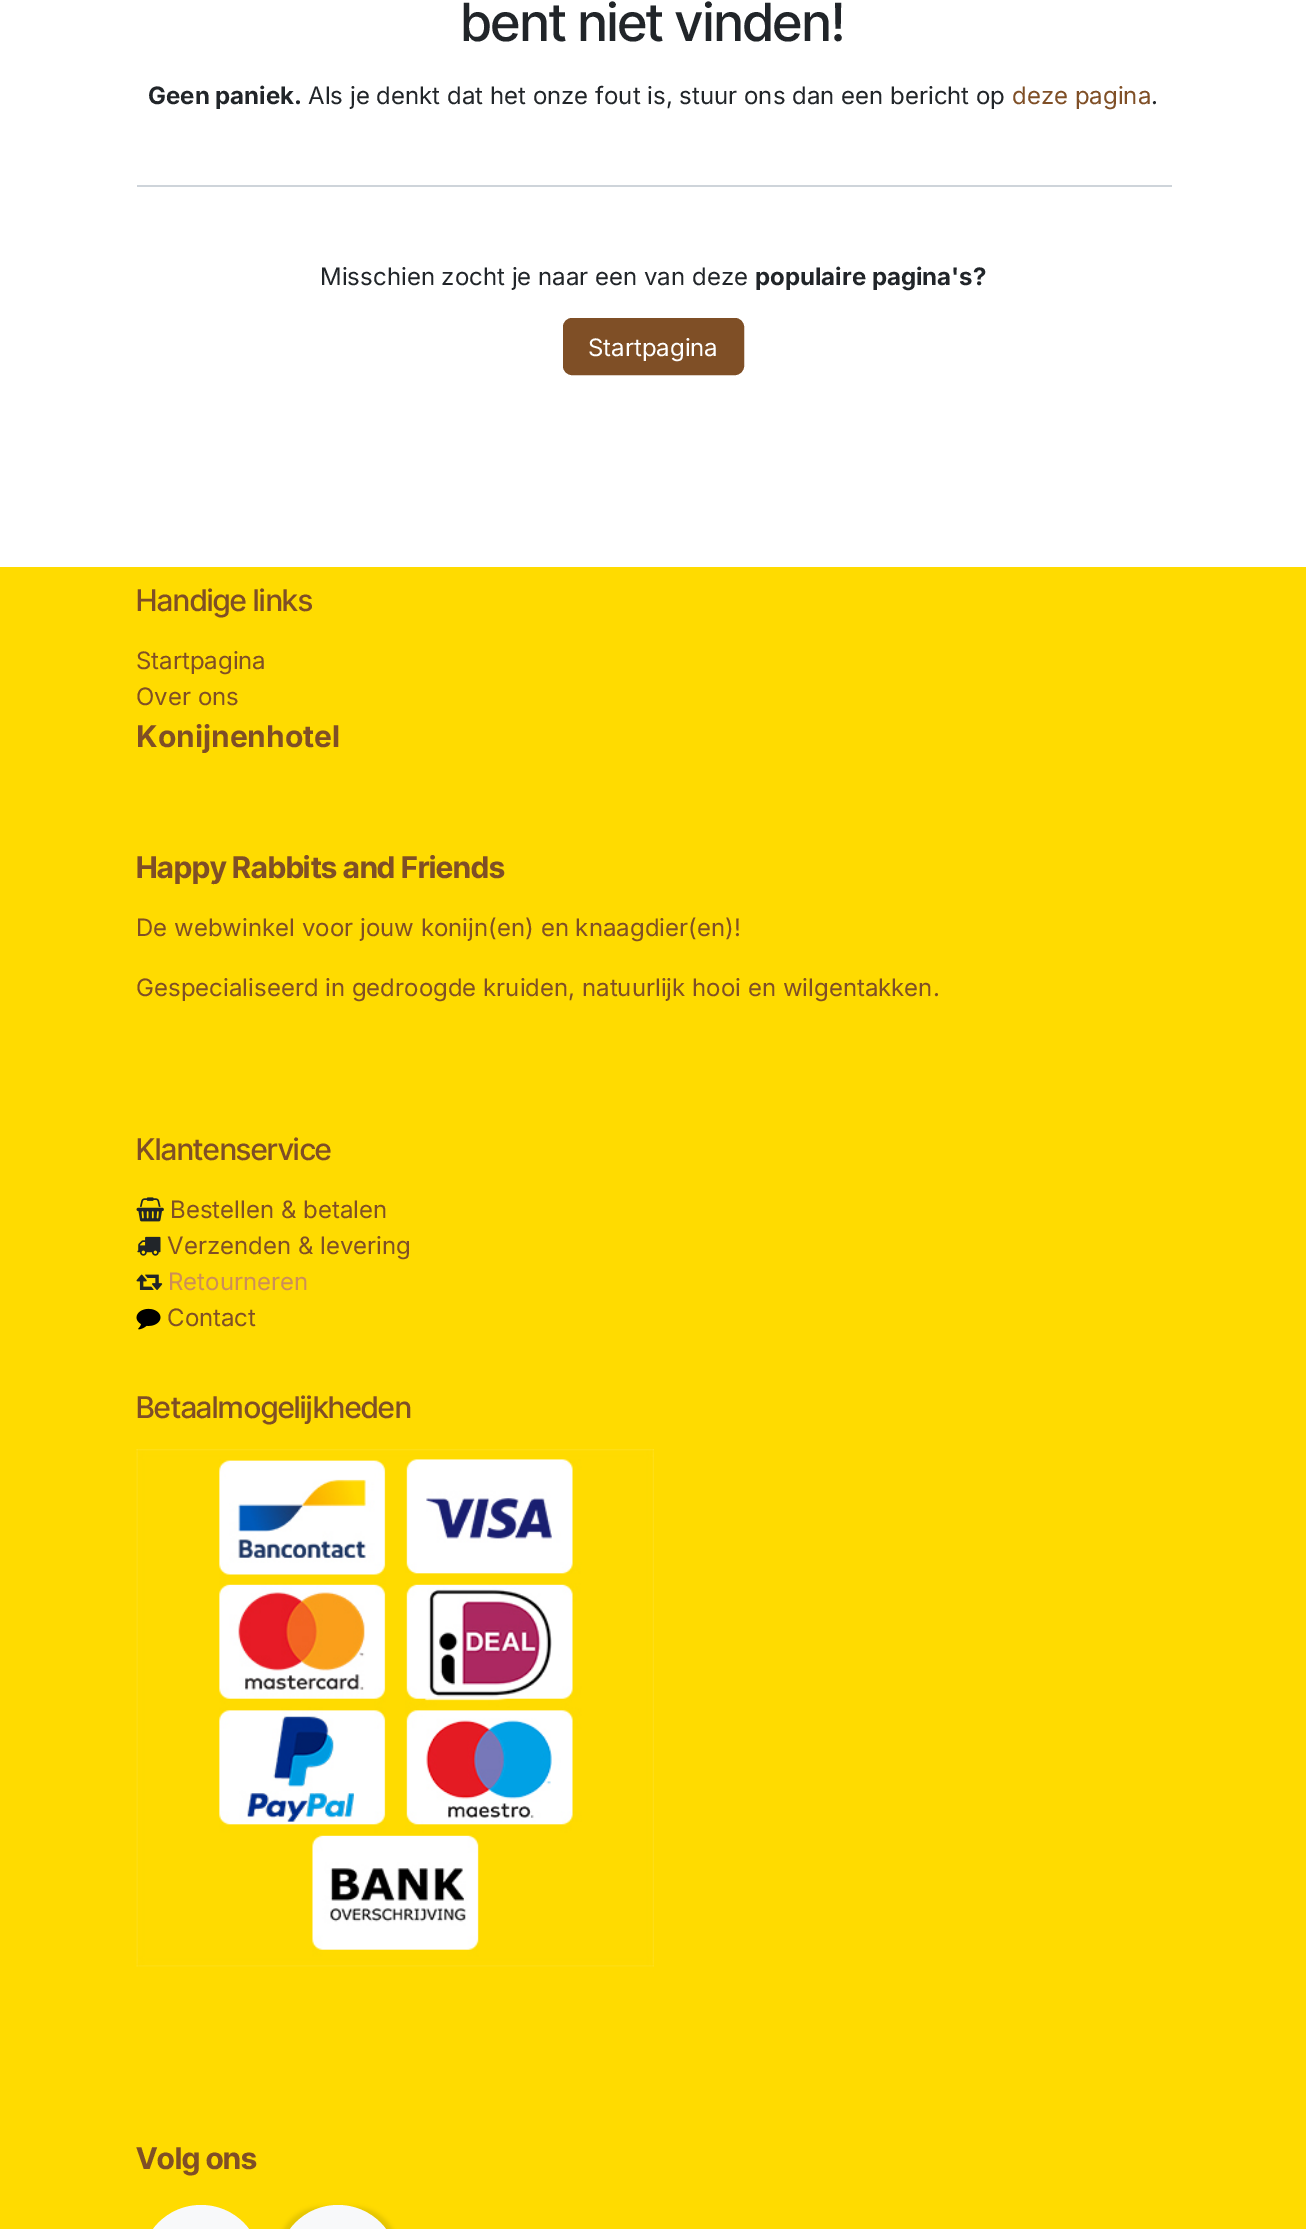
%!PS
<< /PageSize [1306 2229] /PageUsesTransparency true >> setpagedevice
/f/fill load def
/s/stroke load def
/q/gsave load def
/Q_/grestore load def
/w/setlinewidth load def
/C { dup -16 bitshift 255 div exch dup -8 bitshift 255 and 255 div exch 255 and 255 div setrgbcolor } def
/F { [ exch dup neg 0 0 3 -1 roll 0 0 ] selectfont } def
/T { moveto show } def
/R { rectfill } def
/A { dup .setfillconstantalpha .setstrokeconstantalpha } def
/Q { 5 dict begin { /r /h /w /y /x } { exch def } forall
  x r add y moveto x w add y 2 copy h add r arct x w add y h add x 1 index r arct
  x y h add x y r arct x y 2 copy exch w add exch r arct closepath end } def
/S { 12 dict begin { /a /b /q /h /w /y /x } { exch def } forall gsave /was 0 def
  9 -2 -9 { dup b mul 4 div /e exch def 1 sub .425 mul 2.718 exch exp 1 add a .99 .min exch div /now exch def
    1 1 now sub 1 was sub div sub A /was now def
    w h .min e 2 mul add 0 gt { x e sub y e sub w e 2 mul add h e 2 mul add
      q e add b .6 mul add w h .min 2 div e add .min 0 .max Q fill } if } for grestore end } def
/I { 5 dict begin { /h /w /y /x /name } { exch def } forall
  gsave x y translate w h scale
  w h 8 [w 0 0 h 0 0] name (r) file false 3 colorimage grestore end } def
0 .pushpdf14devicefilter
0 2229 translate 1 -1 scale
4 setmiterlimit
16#FFFFFF C
0 0 1306 2229 R
/InterTight-Medium 52.5 F
16#212529 C
(bent niet vinden!) 461 41 T
/Inter-Bold 24 F
(Geen paniek.) 148 104 T
/Inter-Regular 24 F
(Als je denkt dat het onze fout is, stuur ons dan een bericht op) 308 104 T
16#7F4F26 C
(deze pagina) 1012 104 T
16#212529 C
(.) 1151 104 T
16#CED4DA C
137 185 1035 2 R
16#212529 C
(Misschien zocht je naar een van deze) 320 285 T
/Inter-Bold 24 F
(populaire pagina's?) 755 285 T
16#7F4F26 C
564 319 179 55 8 Q q f Q_
2 w
s
/Inter-Regular 24 F
16#FFFFFF C
(Startpagina) 588 356 T
16#FFDB00 C
0 567 1306 1662 R
/InterTight-Medium 30 F
16#7F4F26 C
(Handige links) 136 611 T
/Inter-Regular 24 F
(Startpagina) 136 669 T
(Over ons) 136 705 T
/Inter-Bold 30 F
(Konijnenhotel) 136 747 T
/InterTight-Bold 30 F
(Happy Rabbits and Friends) 136 878 T
/Inter-Regular 24 F
(De webwinkel voor jouw konijn\(en\) en knaagdier\(en\)!) 136 936 T
(Gespecialiseerd in gedroogde kruiden, natuurlijk hooi en wilgentakken.) 136 996 T
/InterTight-Medium 30 F
(Klantenservice) 136 1160 T
(1.rgb) 136 1197 28 25 I
/Inter-Regular 24 F
(Bestellen & betalen) 170 1218 T
(2.rgb) 137 1236 24 20 I
(Verzenden & levering) 167 1254 T
(3.rgb) 136 1274 27 16 I
16#CD8E58 C
(Retourneren) 168 1290 T
(4.rgb) 136 1308 25 22 I
16#7F4F26 C
(Contact) 167 1326 T
/InterTight-Medium 30 F
(Betaalmogelijkheden) 136 1418 T
(5.rgb) 136 1449 518 518 I
/InterTight-Bold 30 F
(Volg ons) 136 2169 T
16#F8F9FA C
141 2205 120 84 60 Q f
16#000000 C
278 2207 120 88 60 2 .1 S
16#F8F9FA C
278 2205 120 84 60 Q f
.poppdf14devicefilter showpage
